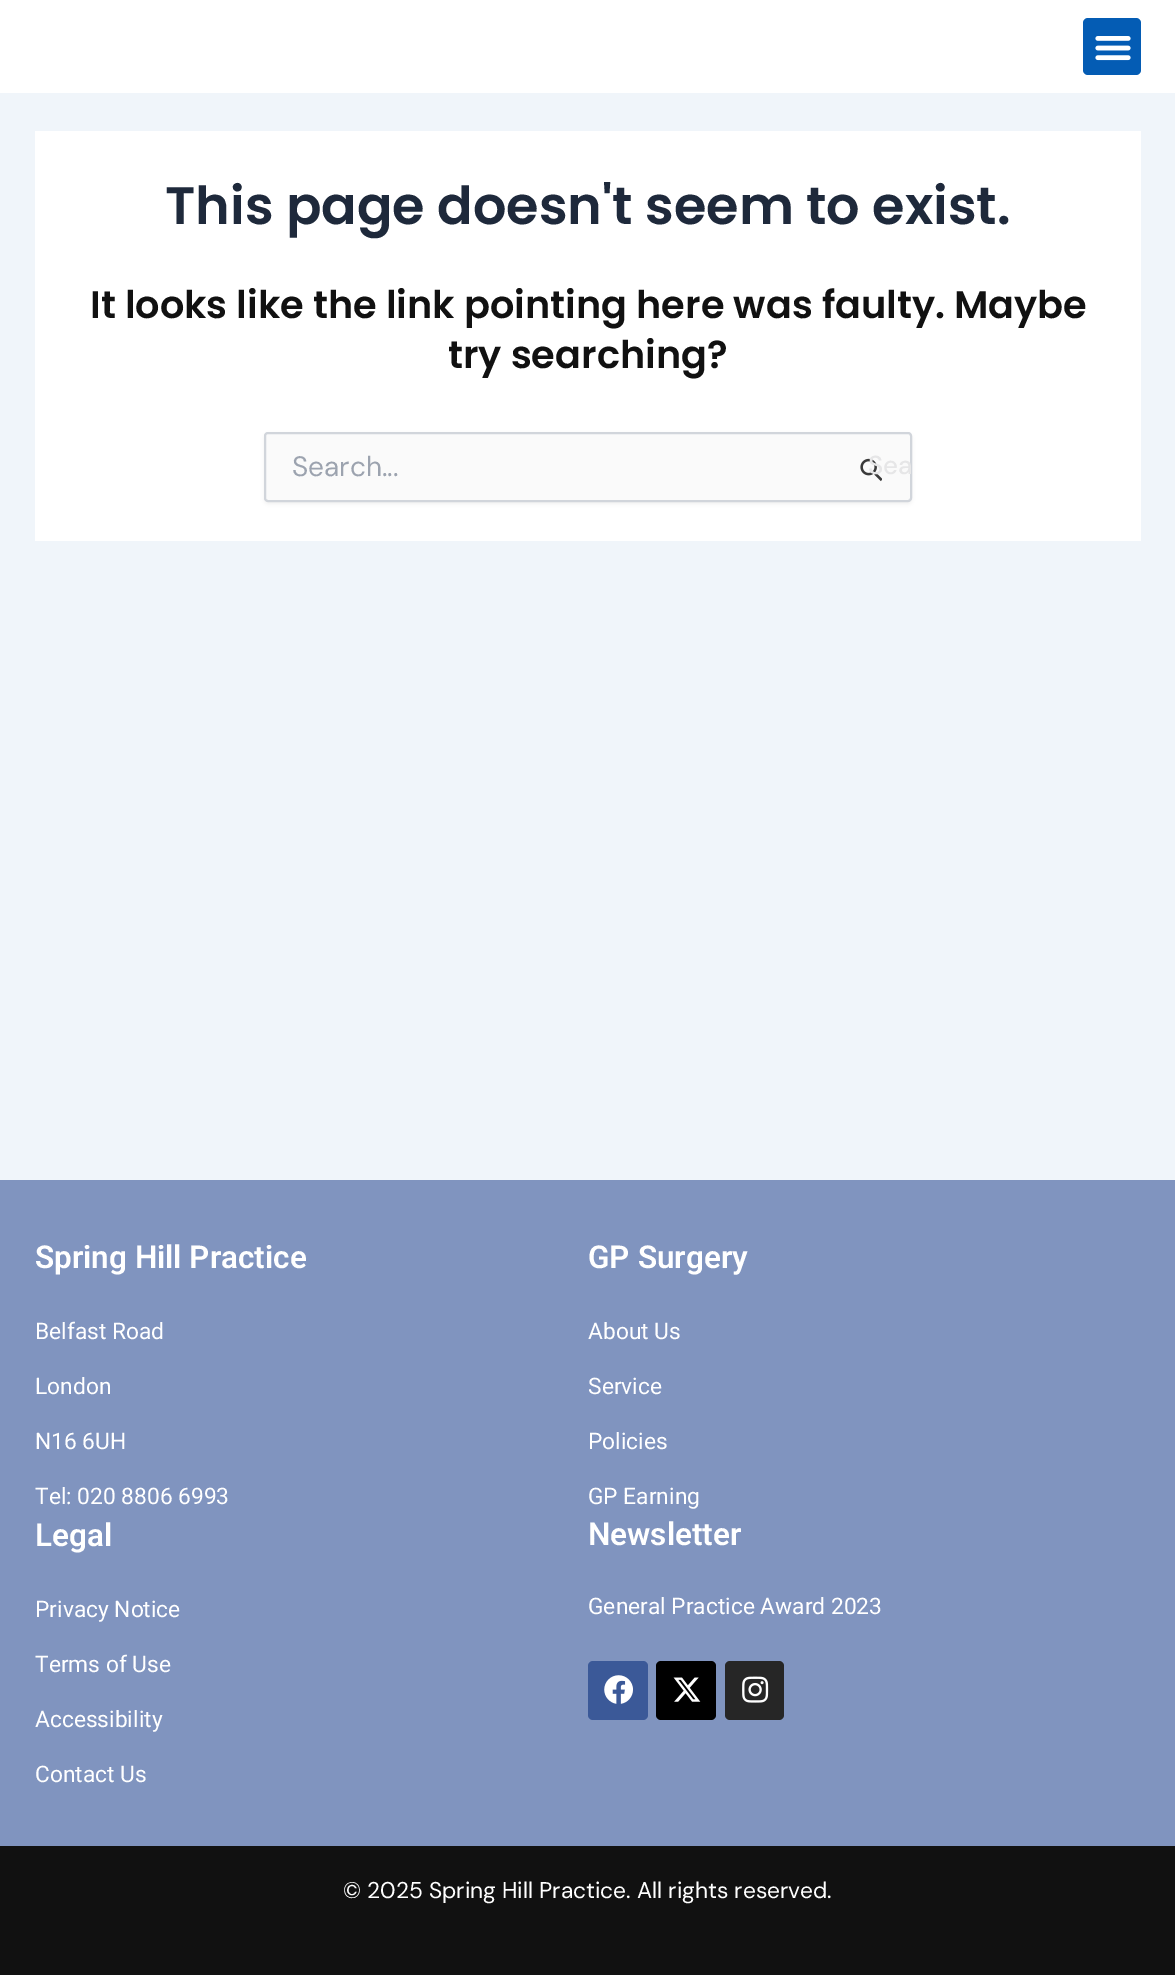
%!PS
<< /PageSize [1175 1975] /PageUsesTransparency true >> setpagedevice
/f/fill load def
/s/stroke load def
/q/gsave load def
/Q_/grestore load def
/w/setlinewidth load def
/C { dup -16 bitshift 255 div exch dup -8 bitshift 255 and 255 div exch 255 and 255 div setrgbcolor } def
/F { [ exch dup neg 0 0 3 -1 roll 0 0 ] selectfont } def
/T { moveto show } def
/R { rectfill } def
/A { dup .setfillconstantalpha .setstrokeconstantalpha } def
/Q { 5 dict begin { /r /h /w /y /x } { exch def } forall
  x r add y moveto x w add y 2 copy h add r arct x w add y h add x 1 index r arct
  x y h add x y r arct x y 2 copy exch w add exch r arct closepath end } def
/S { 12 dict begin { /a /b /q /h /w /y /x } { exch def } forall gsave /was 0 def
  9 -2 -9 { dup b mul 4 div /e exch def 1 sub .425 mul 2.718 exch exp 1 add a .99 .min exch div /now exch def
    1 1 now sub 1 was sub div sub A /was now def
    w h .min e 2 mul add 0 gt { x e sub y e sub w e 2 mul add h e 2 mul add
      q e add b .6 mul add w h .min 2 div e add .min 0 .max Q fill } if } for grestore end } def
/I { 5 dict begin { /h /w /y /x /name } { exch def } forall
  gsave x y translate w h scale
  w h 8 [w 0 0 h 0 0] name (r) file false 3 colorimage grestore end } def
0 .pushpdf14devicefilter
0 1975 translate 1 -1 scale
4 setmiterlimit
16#F0F5FA C
0 0 1175 1975 R
16#FFFFFF C
0 0 1175 93 R
16#045CB4 C
1083 18 58 57 5 Q f
(1.rgb) 1095 36 36 25 I
16#FFFFFF C
35 131 1106 410 R
/Poppins-SemiBold 52.5 F
16#1E293B C
(This page doesn't seem to exist.) 165 224 T
/Poppins-SemiBold 38.3 F
16#111111 C
(It looks like the link pointing here was faulty. Maybe) 90 318 T
(try searching?) 448 368 T
16#000000 C
264 434 648 70 4 2 .05 S
16#FAFAFA C
265 433 646 68 3 Q q f Q_
16#D1D5DB C
2 w
s
/DMSans-Regular 28 F
16#9CA3AF C
(Search...) 292 476 T
(2.rgb) 860 458 22 24 I
/DMSans-Medium 26 F
16#E6E6E7 C
(Sea) 868 474 T
16#8094BF C
0 1180 1175 666 R
/Roboto-SemiBold 31.5 F
16#FFFFFF C
(Spring Hill Practice) 35 1268 T
/Roboto-Regular 22.75 F
(Belfast Road) 35 1339 T
(London) 35 1394 T
(N16 6UH) 35 1449 T
(Tel: 020 8806 6993) 35 1504 T
/Roboto-SemiBold 31.5 F
(GP Surgery) 588 1268 T
/Roboto-Regular 22.75 F
(About Us) 588 1339 T
(Service) 588 1394 T
(Policies) 588 1449 T
(GP Earning) 588 1504 T
/Roboto-SemiBold 31.5 F
(Legal) 35 1546 T
/Roboto-Regular 22.75 F
(Privacy Notice) 35 1617 T
(Terms of Use) 35 1672 T
(Accessibility) 35 1727 T
(Contact Us) 35 1782 T
/Roboto-SemiBold 31.5 F
(Newsletter) 588 1545 T
/Roboto-Regular 22.75 F
(General Practice Award 2023) 588 1614 T
16#3B5998 C
588 1661 60 59 5 Q f
(3.rgb) 604 1675 29 29 I
16#000000 C
656 1661 60 59 5 Q f
(4.rgb) 673 1677 28 25 I
16#262626 C
725 1661 59 59 5 Q f
(5.rgb) 742 1676 27 27 I
16#111111 C
0 1846 1175 129 R
/DMSans-Regular 22.75 F
16#FFFFFF C
(© 2025 Spring Hill Practice. All rights reserved.) 343 1898 T
.poppdf14devicefilter showpage
